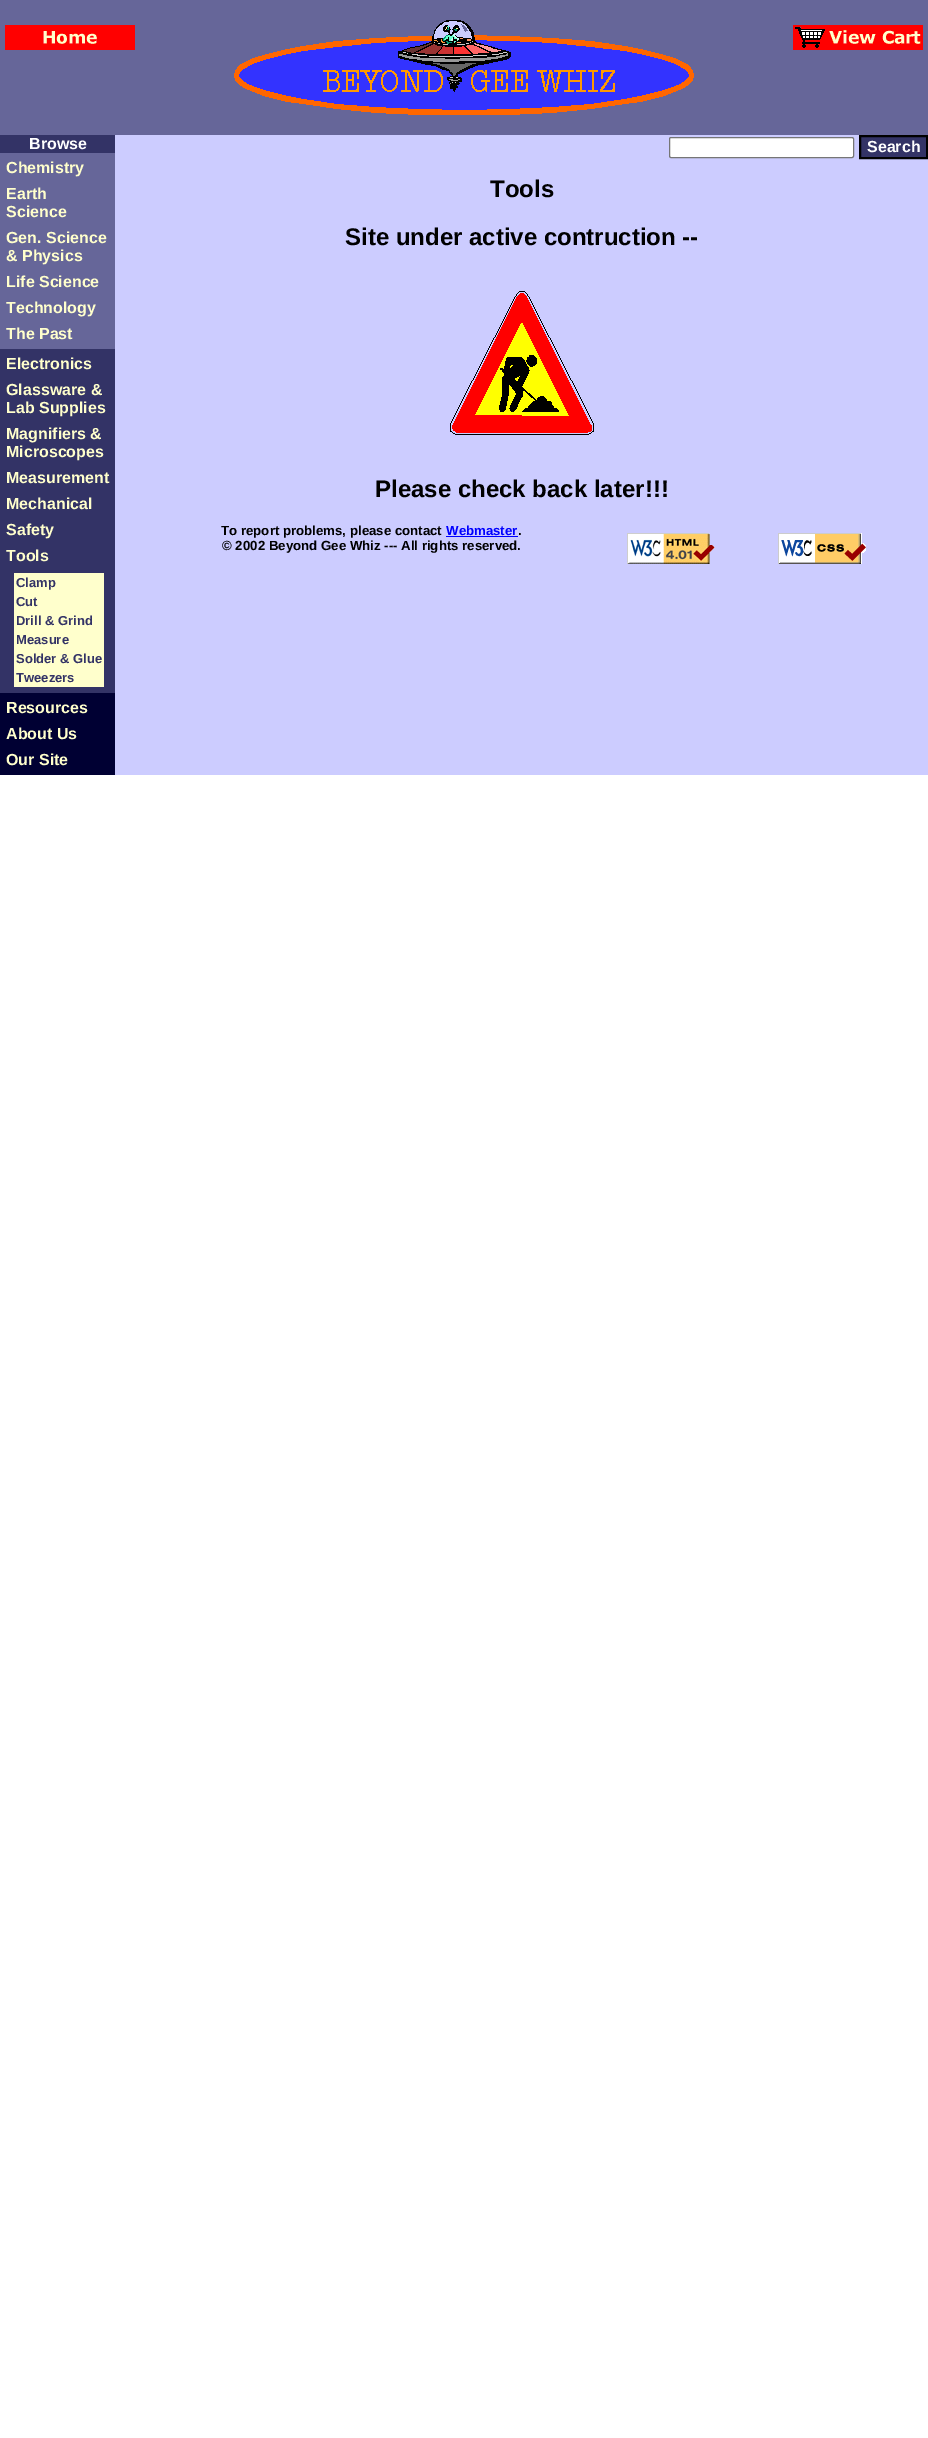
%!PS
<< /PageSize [928 2438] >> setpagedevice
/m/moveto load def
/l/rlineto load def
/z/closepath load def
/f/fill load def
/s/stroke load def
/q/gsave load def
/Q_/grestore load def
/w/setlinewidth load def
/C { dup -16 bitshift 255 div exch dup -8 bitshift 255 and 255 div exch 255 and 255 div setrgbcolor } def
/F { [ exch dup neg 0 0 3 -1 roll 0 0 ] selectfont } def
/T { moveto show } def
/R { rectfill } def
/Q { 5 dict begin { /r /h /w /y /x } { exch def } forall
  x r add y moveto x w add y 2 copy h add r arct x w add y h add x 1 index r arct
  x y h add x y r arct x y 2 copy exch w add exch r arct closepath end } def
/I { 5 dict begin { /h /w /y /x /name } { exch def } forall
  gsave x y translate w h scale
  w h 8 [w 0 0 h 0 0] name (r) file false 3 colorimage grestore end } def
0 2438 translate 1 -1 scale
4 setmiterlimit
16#FFFFFF C
0 0 928 2438 R
16#666699 C
0 0 928 135 R
(1.rgb) 5 25 130 25 I
(2.rgb) 234 20 460 95 I
(3.rgb) 793 25 130 25 I
16#333366 C
0 135 115 18 R
/LiberationSans-Bold 16 F
16#FFFFFF C
(Browse) 29 149 T
16#666699 C
0 153 115 196 R
16#FFFFCC C
(Chemistry) 6 173 T
(Earth) 6 199 T
(Science) 6 217 T
(Gen. Science) 6 243 T
(& Physics) 6 261 T
(Life Science) 6 287 T
(Technology) 6 313 T
(The Past) 6 339 T
16#333366 C
0 349 115 344 R
16#FFFFCC C
(Electronics) 6 369 T
(Glassware &) 6 395 T
(Lab Supplies) 6 413 T
(Magnifiers &) 6 439 T
(Microscopes) 6 457 T
(Measurement) 6 483 T
(Mechanical) 6 509 T
(Safety) 6 535 T
(Tools) 6 561 T
14 573 90 114 R
/LiberationSans-Bold 13 F
16#333366 C
(Clamp) 16 587 T
(Cut) 16 606 T
(Drill & Grind) 16 625 T
(Measure) 16 644 T
(Solder & Glue) 16 663 T
(Tweezers) 16 682 T
16#000033 C
0 693 115 82 R
/LiberationSans-Bold 16 F
16#FFFFCC C
(Resources) 6 713 T
(About Us) 6 739 T
(Our Site) 6 765 T
16#CCCCFF C
115 135 813 640 R
16#FFFFFF C
669.5 137.5 184 20 1.5 Q q f Q_
16#767676 C
s
16#333366 C
860 136 m 67 0 l 0 22 l -67 0 l z q f Q_
16#000000 C
2 w
s
16#FFFFFF C
(Search) 867 152 T
/LiberationSans-Bold 24 F
16#000000 C
(Tools) 490 197 T
(Site under active contruction --) 345 245 T
(4.rgb) 450 291 144 144 I
(Please check back later!!!) 375 497 T
/LiberationSans-Bold 13.25 F
(To report problems, please contact) 221 535 T
16#0000FF C
(Webmaster) 446 535 T
446 536 72 1 R
16#000000 C
(.) 518 535 T
(© 2002 Beyond Gee Whiz --- All rights reserved.) 222 550 T
(5.rgb) 627 533 88 31 I
(6.rgb) 778 533 88 31 I
showpage
